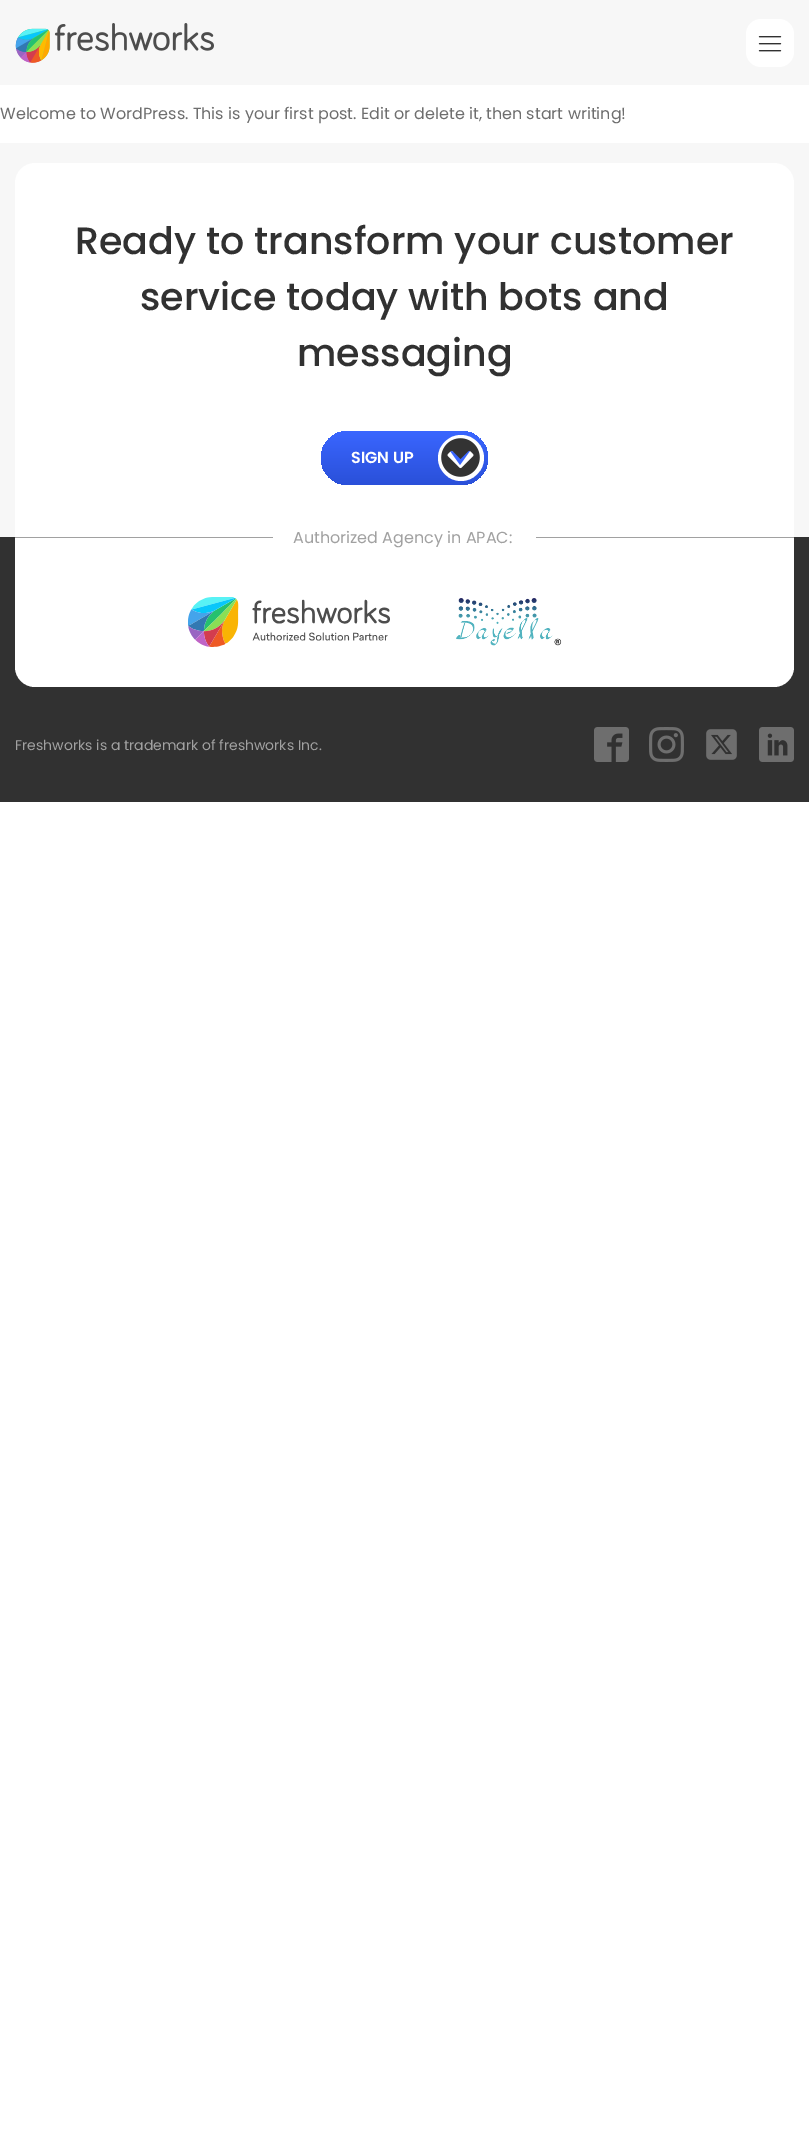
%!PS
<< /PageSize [809 2141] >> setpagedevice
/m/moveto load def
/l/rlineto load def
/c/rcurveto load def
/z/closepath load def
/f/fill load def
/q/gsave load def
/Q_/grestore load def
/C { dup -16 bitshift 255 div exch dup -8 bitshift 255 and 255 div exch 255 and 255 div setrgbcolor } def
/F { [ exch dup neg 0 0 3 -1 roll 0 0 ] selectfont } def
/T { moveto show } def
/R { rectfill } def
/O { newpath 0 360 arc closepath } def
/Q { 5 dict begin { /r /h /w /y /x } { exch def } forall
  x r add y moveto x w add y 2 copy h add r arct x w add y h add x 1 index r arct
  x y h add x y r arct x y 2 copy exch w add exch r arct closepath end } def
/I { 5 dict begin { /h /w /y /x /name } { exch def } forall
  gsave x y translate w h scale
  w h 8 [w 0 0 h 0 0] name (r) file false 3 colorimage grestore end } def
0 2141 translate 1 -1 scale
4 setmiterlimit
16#FFFFFF C
0 0 809 2141 R
16#F7F7F7 C
0 0 809 85 R
(1.rgb) 15 23 199 40 I
16#FFFFFF C
746 19 48 48 15 Q f
(2.rgb) 758 36 24 16 I
/Poppins-Regular 16 F
16#6E6E6E C
(Welcome to WordPress. This is your first post. Edit or delete it, then start writing!) 0 119 T
16#F7F7F7 C
0 143 809 394 R
16#313131 C
0 537 809 265 R
16#FFFFFF C
16 537 m 777 0 l .5 0 1 .5 1 1 c 0 129 l 0 11 -9 20 -20 20 c -739 0 l -11 0 -20 -9 -20 -20 c 0 -129 l 0 -.5 .5 -1 1 -1 c z f
35 163 m 739 0 l 11 0 20 9 20 20 c 0 366 l 0 .5 -.5 1 -1 1 c -777 0 l -.5 0 -1 -.5 -1 -1 c 0 -366 l 0 -11 9 -20 20 -20 c z f
/Poppins-Medium 38 F
16#313131 C
(Ready to transform your customer) 75 254 T
(service today with bots and) 140 310 T
(messaging) 297 366 T
q 321 431 167 54 27 Q clip newpath
<< /ShadingType 2 /ColorSpace /DeviceRGB /Coords [405 431 405 485] /Extend [true true] /Function << /FunctionType 2 /Domain [0 1] /C0 [.227 .4 1] /C1 [.165 .314 .851] /N 1 >> >> shfill Q_
/Poppins-SemiBold 16 F
16#FFFFFF C
(SIGN UP) 351 463 T
461 458 23 O f
(3.rgb) 450 450 20 15 I
(4.rgb) 441 438 39 39 I
16#A1A1A1 C
15 537 258 1 R
/Poppins-Regular 16 F
(Authorized Agency in APAC:) 293 543 T
536 537 258 1 R
(5.rgb) 188 597 202 50 I
(6.rgb) 456 598 106 48 I
/Poppins-Regular 14 F
(Freshworks is a trademark of freshworks Inc.) 15 750 T
(7.rgb) 594 727 35 35 I
(8.rgb) 649 727 35 35 I
(9.rgb) 706 729 31 31 I
(10.rgb) 759 727 35 35 I
showpage
